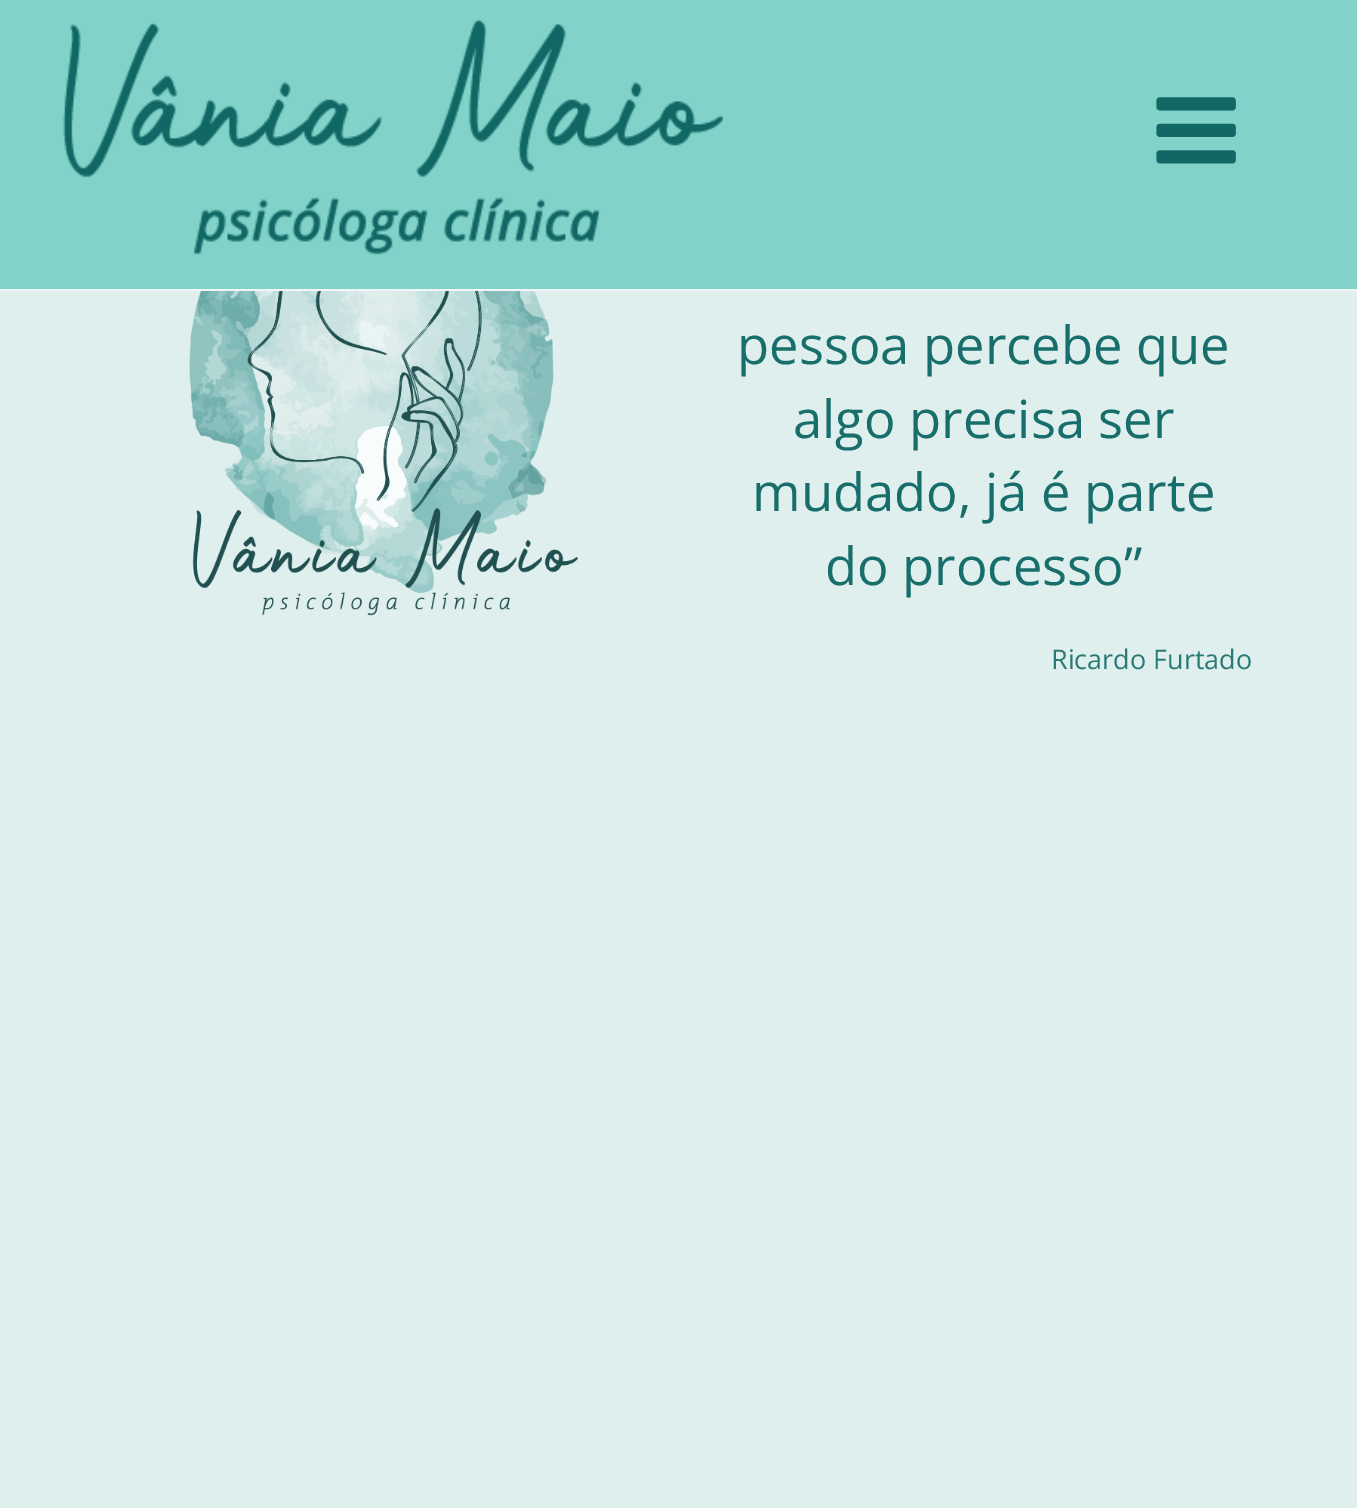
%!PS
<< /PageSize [1357 1508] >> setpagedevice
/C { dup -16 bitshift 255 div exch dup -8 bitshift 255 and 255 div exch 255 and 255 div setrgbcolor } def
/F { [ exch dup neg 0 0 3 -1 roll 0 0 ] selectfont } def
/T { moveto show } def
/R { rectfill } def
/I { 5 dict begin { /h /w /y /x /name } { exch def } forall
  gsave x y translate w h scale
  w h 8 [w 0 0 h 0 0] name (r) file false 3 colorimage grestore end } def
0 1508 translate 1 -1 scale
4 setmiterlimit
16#DFEFEE C
0 0 1357 1508 R
16#81D3C9 C
0 0 1357 289 R
16#F2F5F7 C
0 289 1357 2 R
(1.rgb) 62 19 662 236 I
(2.rgb) 1156 97 80 67 I
(3.rgb) 189 291 389 325 I
/OpenSans-Regular 52.5 F
16#186E6B C
(pessoa percebe que) 737 364 T
(algo precisa ser) 793 438 T
(mudado, já é parte) 752 511 T
(do processo”) 825 585 T
/OpenSans-Regular 27 F
16#297976 C
(Ricardo Furtado) 1051 669 T
showpage
